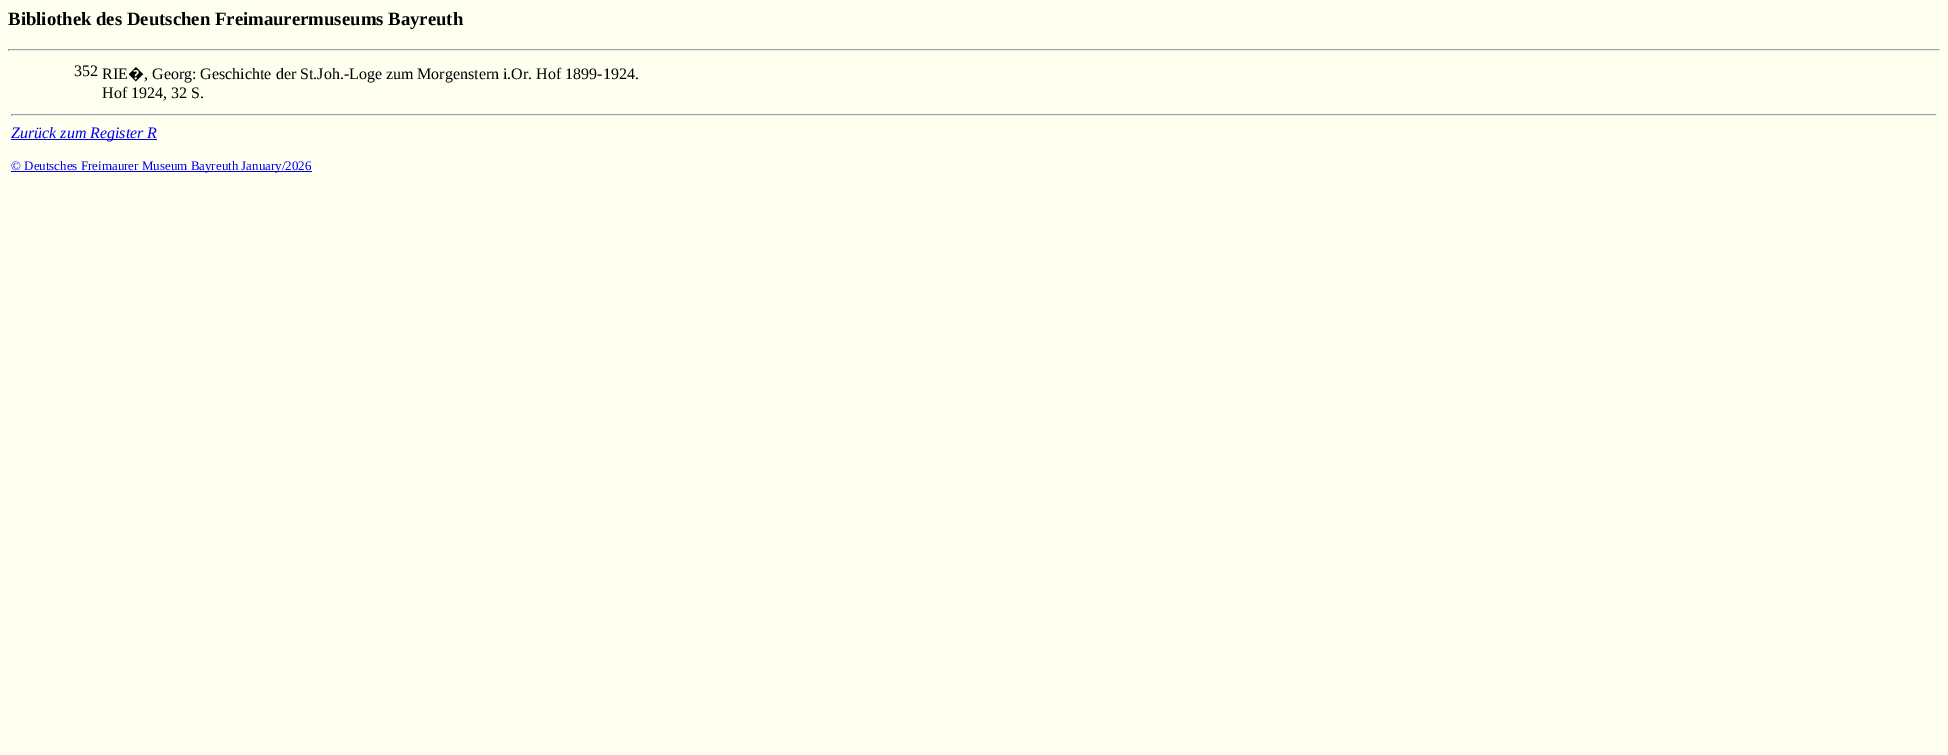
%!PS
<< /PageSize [1948 755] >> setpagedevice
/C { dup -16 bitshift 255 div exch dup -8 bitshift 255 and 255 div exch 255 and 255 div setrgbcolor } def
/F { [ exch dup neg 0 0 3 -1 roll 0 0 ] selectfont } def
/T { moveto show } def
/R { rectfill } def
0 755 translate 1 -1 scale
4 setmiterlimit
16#FFFFEF C
0 0 1948 755 R
/LiberationSerif-Bold 18.75 F
16#000000 C
(Bibliothek des Deutschen Freimaurermuseums Bayreuth) 8 25 T
16#9F9F9F C
8 49 1932 1 R
16#EEEEEE C
1939 49 1 2 R
8 50 1932 1 R
16#9F9F9F C
8 49 1 2 R
/LiberationSerif-Regular 16 F
16#000000 C
(352) 74 76 T
(RIE) 102 79 T
/NotoSans-Regular 16 F
(�) 128 79 T
/LiberationSerif-Regular 16 F
(, Georg: Geschichte der St.Joh.-Loge zum Morgenstern i.Or. Hof 1899-1924.) 144 79 T
(Hof 1924, 32 S.) 102 98 T
16#9F9F9F C
11 114 1926 1 R
16#EEEEEE C
1936 114 1 2 R
11 115 1926 1 R
16#9F9F9F C
11 114 1 2 R
16#0000EE C
11 139 146 1 R
/LiberationSerif-Italic 16 F
(Zurück zum Register R) 11 138 T
11 171 301 1 R
/LiberationSerif-Regular 13 F
(© Deutsches Freimaurer Museum Bayreuth January/2026) 11 170 T
showpage
